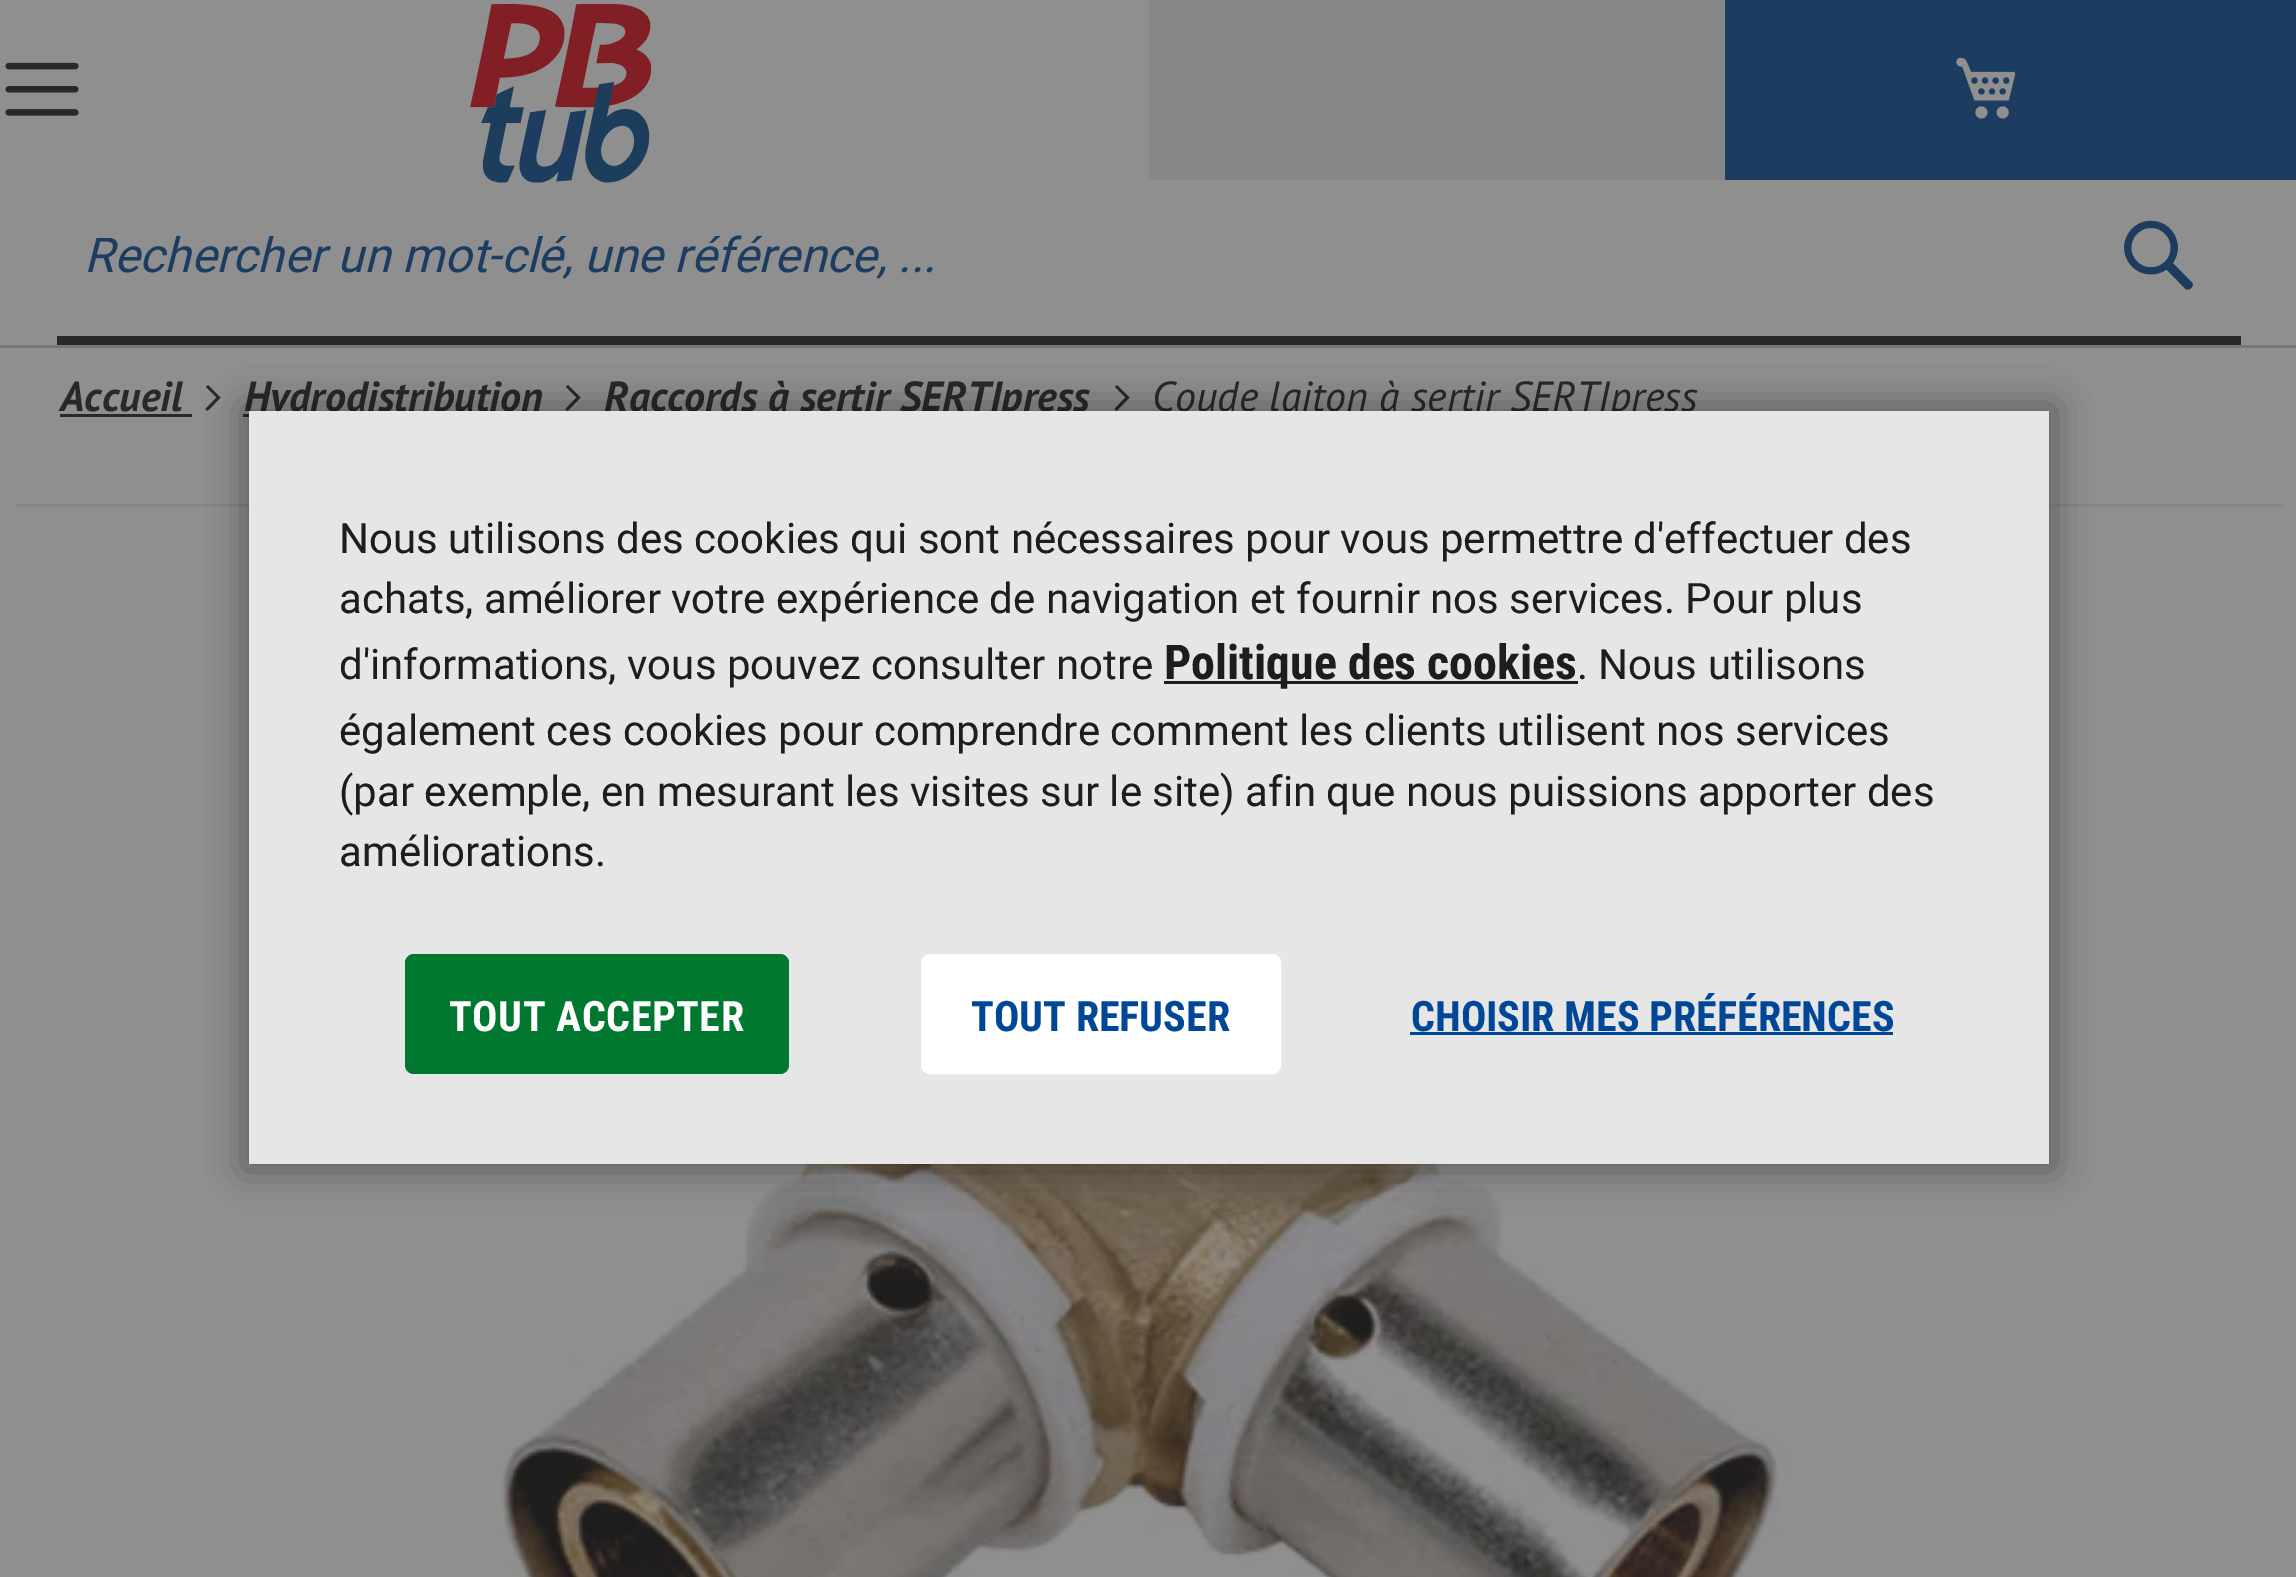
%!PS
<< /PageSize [2296 1577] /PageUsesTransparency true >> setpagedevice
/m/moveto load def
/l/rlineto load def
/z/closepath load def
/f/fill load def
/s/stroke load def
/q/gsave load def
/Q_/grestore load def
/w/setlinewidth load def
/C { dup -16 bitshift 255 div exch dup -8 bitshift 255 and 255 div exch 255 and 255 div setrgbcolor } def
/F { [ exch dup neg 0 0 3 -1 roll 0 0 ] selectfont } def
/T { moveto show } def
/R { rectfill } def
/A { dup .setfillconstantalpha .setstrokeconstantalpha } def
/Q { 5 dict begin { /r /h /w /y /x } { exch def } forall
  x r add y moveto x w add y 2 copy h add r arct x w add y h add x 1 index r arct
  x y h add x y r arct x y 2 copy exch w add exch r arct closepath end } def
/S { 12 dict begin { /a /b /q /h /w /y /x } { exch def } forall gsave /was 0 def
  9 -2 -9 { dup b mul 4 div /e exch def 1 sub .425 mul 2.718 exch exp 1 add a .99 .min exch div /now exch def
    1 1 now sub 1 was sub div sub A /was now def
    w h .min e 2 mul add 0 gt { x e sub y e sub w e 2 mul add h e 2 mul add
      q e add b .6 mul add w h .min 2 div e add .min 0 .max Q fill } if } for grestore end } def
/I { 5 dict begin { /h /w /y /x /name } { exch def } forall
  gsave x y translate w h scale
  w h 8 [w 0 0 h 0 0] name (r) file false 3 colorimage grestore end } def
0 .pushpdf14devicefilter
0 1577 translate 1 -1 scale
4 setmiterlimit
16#8F8F8F C
0 0 2296 1577 R
16#787878 C
0 345 2296 3 R
16#878787 C
1149 0 576 180 R
(1.rgb) 5 62 74 54 I
(2.rgb) 470 3 182 180 I
16#1C3C60 C
1725 0 571 180 R
(3.rgb) 1956 57 60 62 I
16#292928 C
57 336 2184 9 R
/Roboto-Italic 48 F
16#1C3C60 C
(Rechercher un mot-clé, une référence, ...) 84 272 T
(4.rgb) 2124 220 69 70 I
/PTSans-BoldItalic 42 F
16#292928 C
(Accueil) 60 411 T
60 414 132 3 R
220.5 397.5 m -12.5 -12.5 l -2 2 l 10.5 10.5 l -11 11.5 l 2 2 l z f
243 414 6 3 R
(Hydrodistribution) 244 411 T
580.5 397.5 m -12.5 -12.5 l -2 2 l 10.5 10.5 l -11 11.5 l 2 2 l z f
(Raccords à sertir SERTIpress) 604 411 T
1129.5 397.5 m -12.5 -12.5 l -2 2 l 10.5 10.5 l -11 11.5 l 2 2 l z f
/PTSans-Italic 42 F
(Coude laiton à sertir SERTIpress) 1152 411 T
16#878787 C
15 504 2268 3 R
(5.rgb) 500 1164 1291 413 I
16#000000 C
243 405 1812 765 0 18 .35 S
16#E6E6E6 C
249 411 1800 753 R
/Roboto-Regular 42 F
16#1D1D1B C
(Nous utilisons des cookies qui sont nécessaires pour vous permettre d'effectuer des) 339 553 T
(achats, améliorer votre expérience de navigation et fournir nos services. Pour plus) 339 613 T
(d'informations, vous pouvez consulter notre) 339 679 T
1164 681 414 3 R
/RobotoCondensed-Bold 48 F
(Politique des cookies) 1164 679 T
/Roboto-Regular 42 F
(. Nous utilisons) 1577 679 T
(également ces cookies pour comprendre comment les clients utilisent nos services) 339 745 T
(\(par exemple, en mesurant les visites sur le site\) afin que nous puissions apporter des) 339 806 T
(améliorations.) 339 866 T
16#007830 C
405 954 384 120 9 Q f
/RobotoCondensed-Bold 42 F
16#FFFFFF C
449 1031 m .5 0 (TOUT ACCEPTER) ashow
924 957 354 114 6 Q q f Q_
6 w
s
16#004797 C
(TOUT REFUSER) 971 1031 T
(CHOISIR MES PRÉFÉRENCES) 1411 1031 T
1410 1032 483 3 R
.poppdf14devicefilter showpage
